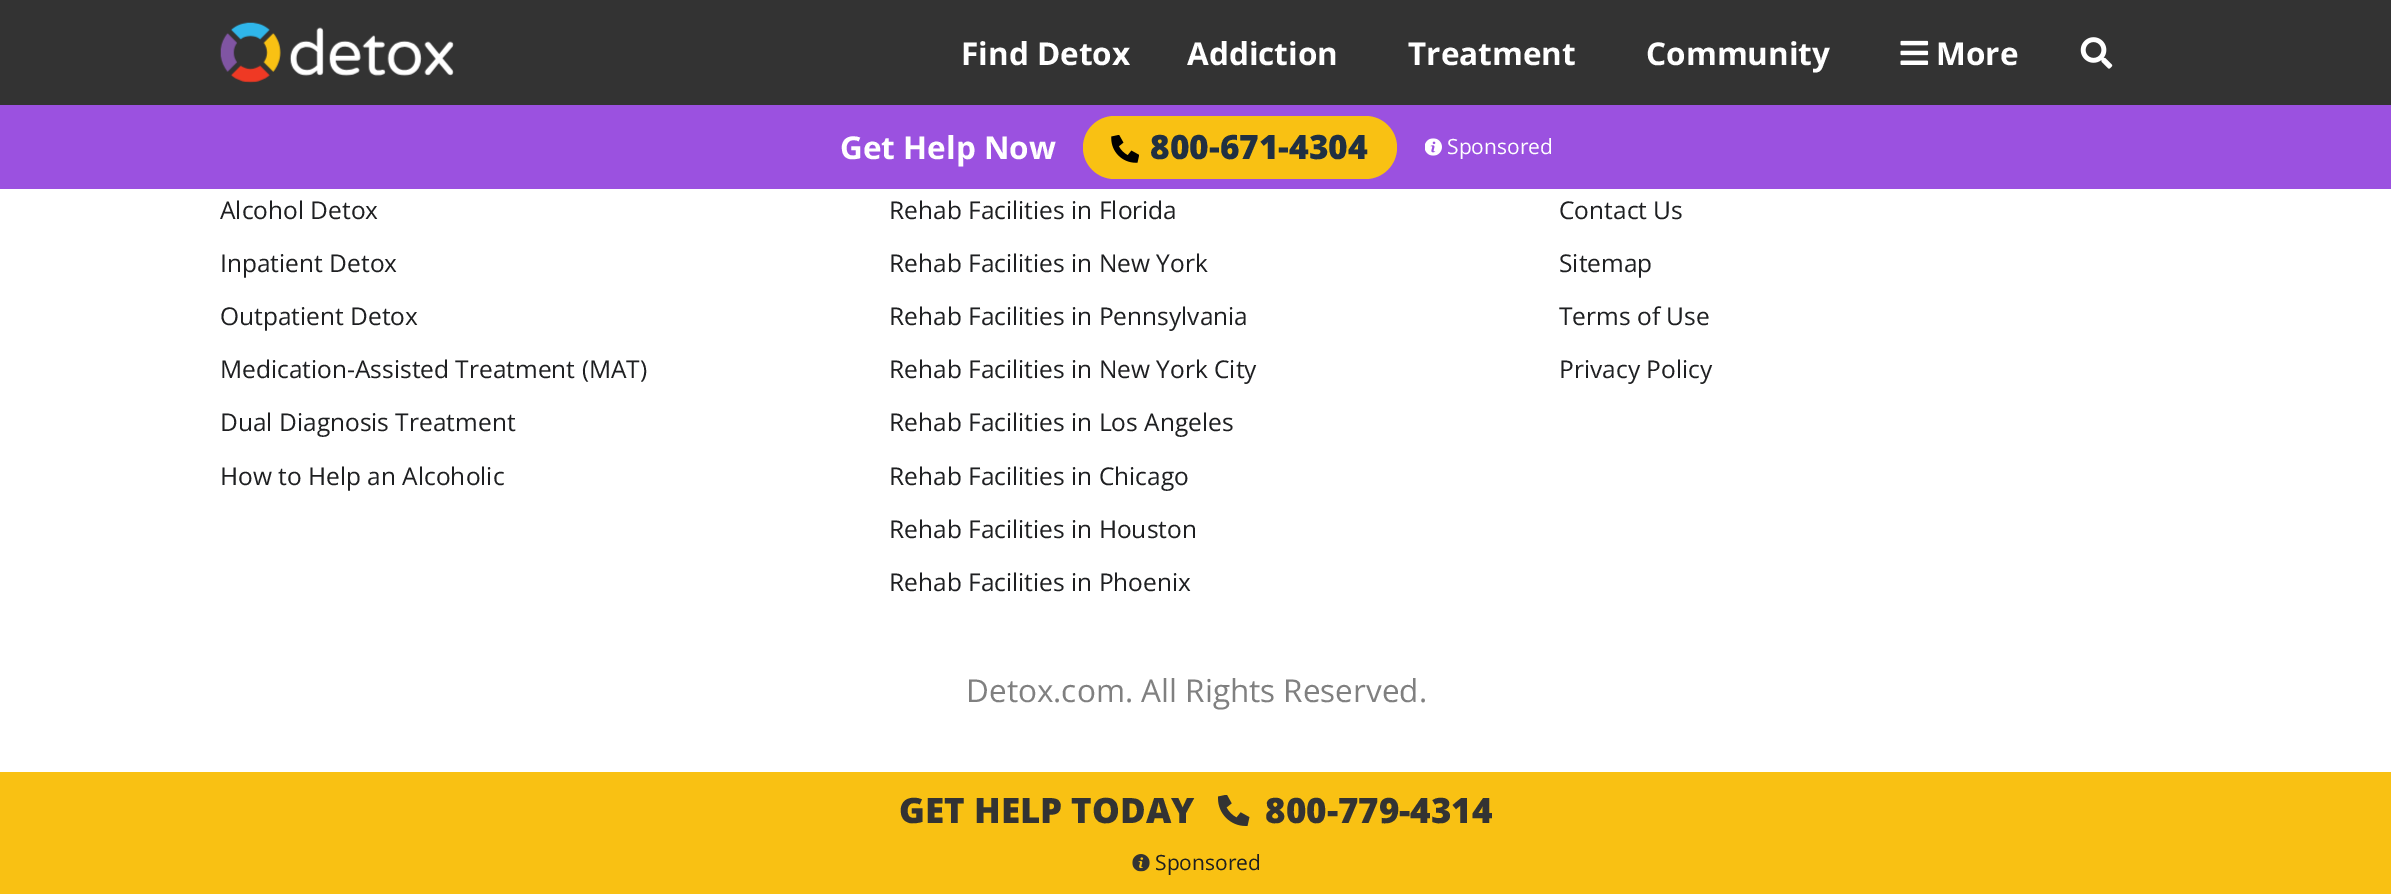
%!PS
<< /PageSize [2391 894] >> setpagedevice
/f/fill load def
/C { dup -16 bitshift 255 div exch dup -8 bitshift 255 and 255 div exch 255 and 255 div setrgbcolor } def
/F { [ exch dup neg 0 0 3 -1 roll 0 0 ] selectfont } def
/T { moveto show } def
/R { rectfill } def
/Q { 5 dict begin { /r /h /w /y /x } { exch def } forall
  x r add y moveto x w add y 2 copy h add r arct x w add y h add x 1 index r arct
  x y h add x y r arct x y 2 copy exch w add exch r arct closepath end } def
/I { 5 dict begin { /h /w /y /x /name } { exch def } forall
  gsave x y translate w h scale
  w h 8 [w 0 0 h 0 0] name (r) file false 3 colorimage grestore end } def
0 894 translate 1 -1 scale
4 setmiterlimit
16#FFFFFF C
0 0 2391 894 R
16#333333 C
0 0 2391 105 R
(1.rgb) 220 22 234 61 I
/OpenSans-Bold 31.5 F
16#FFFFFF C
(Find Detox) 961 65 T
(Addiction) 1187 65 T
(Treatment) 1408 65 T
(Community) 1646 65 T
(2.rgb) 1900 40 29 25 I
(More) 1936 65 T
(3.rgb) 2080 37 33 32 I
16#9B51E0 C
0 105 2391 84 R
16#FFFFFF C
(Get Help Now) 840 159 T
16#F9C113 C
1083 116 314 63 31.5 Q f
(4.rgb) 1111 135 28 28 I
/OpenSans-ExtraBold 33.5 F
16#203042 C
(800-671-4304) 1150 159 T
(5.rgb) 1425 138 17 18 I
/OpenSans-Regular 21 F
16#FFFFFF C
(Sponsored) 1447 154 T
/OpenSans-Regular 24.5 F
16#1E1F21 C
(Alcohol Detox) 220 219 T
(Inpatient Detox) 220 272 T
(Outpatient Detox) 220 325 T
(Medication-Assisted Treatment \(MAT\)) 220 378 T
(Dual Diagnosis Treatment) 220 431 T
(How to Help an Alcoholic) 220 485 T
(Rehab Facilities in Florida) 889 219 T
(Rehab Facilities in New York) 889 272 T
(Rehab Facilities in Pennsylvania) 889 325 T
(Rehab Facilities in New York City) 889 378 T
(Rehab Facilities in Los Angeles) 889 431 T
(Rehab Facilities in Chicago) 889 485 T
(Rehab Facilities in Houston) 889 538 T
(Rehab Facilities in Phoenix) 889 591 T
(Contact Us) 1559 219 T
(Sitemap) 1559 272 T
(Terms of Use) 1559 325 T
(Privacy Policy) 1559 378 T
/OpenSans-Regular 31.5 F
16#808080 C
(Detox.com. All Rights Reserved.) 966 702 T
16#F9C113 C
0 772 2391 122 R
/OpenSans-ExtraBold 35 F
16#333333 C
(GET HELP TODAY) 899 823 T
(6.rgb) 1218 795 32 31 I
(800-779-4314) 1265 823 T
(7.rgb) 1132 854 18 18 I
/OpenSans-Regular 21 F
16#1E1F21 C
(Sponsored) 1155 870 T
showpage
